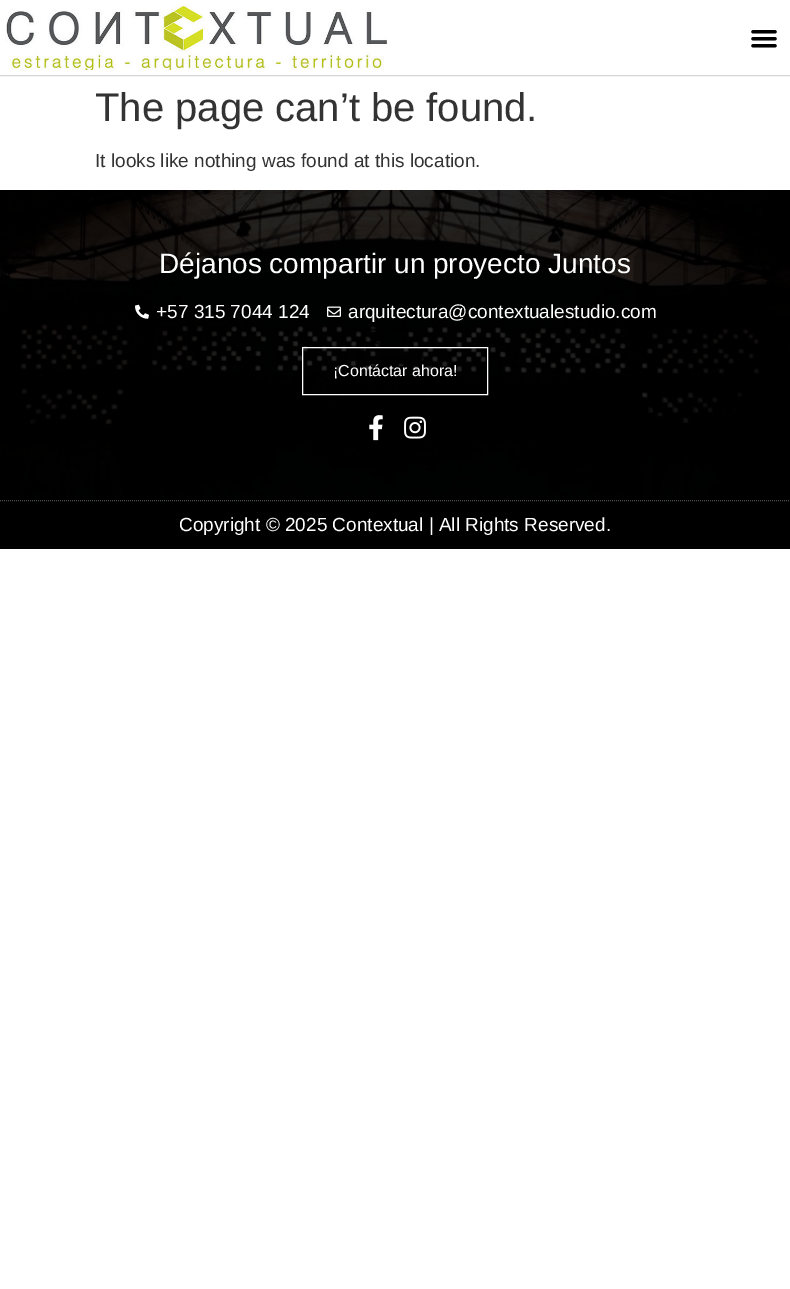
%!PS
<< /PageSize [790 1289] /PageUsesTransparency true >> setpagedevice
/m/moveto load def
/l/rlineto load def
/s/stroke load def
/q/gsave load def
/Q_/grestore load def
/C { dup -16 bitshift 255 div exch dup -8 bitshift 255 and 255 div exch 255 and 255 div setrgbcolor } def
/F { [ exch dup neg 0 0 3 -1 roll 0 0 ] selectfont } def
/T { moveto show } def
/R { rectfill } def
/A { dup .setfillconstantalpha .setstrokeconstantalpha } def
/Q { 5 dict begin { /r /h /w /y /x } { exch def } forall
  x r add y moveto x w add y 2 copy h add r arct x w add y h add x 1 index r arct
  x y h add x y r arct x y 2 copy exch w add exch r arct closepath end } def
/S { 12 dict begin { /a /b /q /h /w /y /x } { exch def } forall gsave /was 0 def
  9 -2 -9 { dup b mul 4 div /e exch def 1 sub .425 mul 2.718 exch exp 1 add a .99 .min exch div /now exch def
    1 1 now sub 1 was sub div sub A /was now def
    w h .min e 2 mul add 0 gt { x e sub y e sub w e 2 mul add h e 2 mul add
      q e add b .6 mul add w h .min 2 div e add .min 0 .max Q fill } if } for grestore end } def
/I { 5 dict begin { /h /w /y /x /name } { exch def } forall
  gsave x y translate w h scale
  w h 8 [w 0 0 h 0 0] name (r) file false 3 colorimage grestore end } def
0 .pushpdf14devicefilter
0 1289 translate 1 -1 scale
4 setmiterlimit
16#FFFFFF C
0 0 790 1289 R
q
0 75 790 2 rectclip
16#000000 C
0 0 790 75 0 1 .5 S
Q_
(1.rgb) 5 5 383 65 I
(2.rgb) 751 30 26 18 I
/LiberationSans-Regular 40 F
16#333333 C
(The page can’t be found.) 95 121 T
/LiberationSans-Regular 19 F
(It looks like nothing was found at this location.) 95 167 T
(3.rgb) 0 190 790 310 I
/LiberationSans-Regular 28 F
16#FFFFFF C
(Déjanos compartir un proyecto Juntos) 159 273 T
(4.rgb) 135 304 14 15 I
/LiberationSans-Regular 19 F
(+57 315 7044 124) 156 318 T
(5.rgb) 327 306 14 11 I
(arquitectura@contextualestudio.com) 348 318 T
302.5 347.5 185 47 rectstroke
/LiberationSans-Regular 16 F
(¡Contáctar ahora!) 333 376 T
(6.rgb) 369 415 14 26 I
(7.rgb) 404 416 22 23 I
16#000000 C
0 500 790 49 R
16#4D4D4D C
[1 1] 0 setdash
0 500.5 m 790 0 l s
/LiberationSans-Regular 19 F
16#FFFFFF C
(Copyright © 2025 Contextual | All Rights Reserved.) 179 531 T
.poppdf14devicefilter showpage
